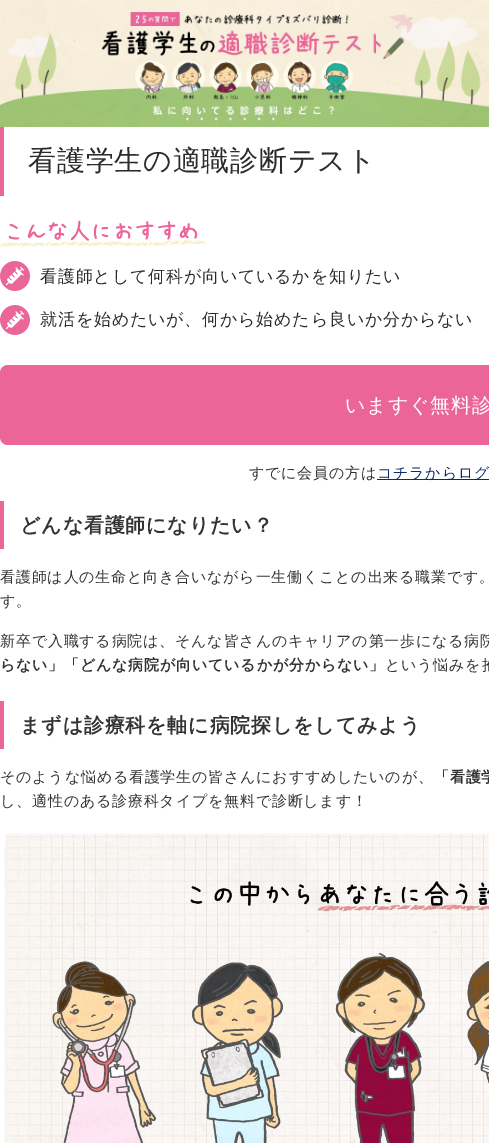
%!PS
<< /PageSize [489 1143] >> setpagedevice
/m/moveto load def
/f/fill load def
/C { dup -16 bitshift 255 div exch dup -8 bitshift 255 and 255 div exch 255 and 255 div setrgbcolor } def
/F { [ exch dup neg 0 0 3 -1 roll 0 0 ] selectfont } def
/R { rectfill } def
/Q { 5 dict begin { /r /h /w /y /x } { exch def } forall
  x r add y moveto x w add y 2 copy h add r arct x w add y h add x 1 index r arct
  x y h add x y r arct x y 2 copy exch w add exch r arct closepath end } def
/I { 5 dict begin { /h /w /y /x /name } { exch def } forall
  gsave x y translate w h scale
  w h 8 [w 0 0 h 0 0] name (r) file false 3 colorimage grestore end } def
0 1143 translate 1 -1 scale
4 setmiterlimit
16#FFFFFF C
0 0 489 1143 R
(1.rgb) 0 0 489 127 I
16#EB6598 C
0 127 4 69 R
/WenQuanYiZenHei-Medium 28 F
16#2B2B2B C
28 170 m .8 0 (看護学生の適職診断テスト) ashow
(2.rgb) 0 220 206 27 I
(3.rgb) 0 261 30 30 I
/WenQuanYiZenHei-Medium 17 F
40 282 m .8 0 (看護師として何科が向いているかを知りたい) ashow
(3.rgb) 0 305 30 30 I
40 325 m .8 0 (就活を始めたいが、何から始めたら良いか分からない) ashow
16#EB6598 C
0 365 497 80 8 Q f
/WenQuanYiZenHei-Medium 20 F
16#FFFFFF C
345 412 m .8 0 (いますぐ無料診) ashow
/WenQuanYiZenHei-Medium 15 F
16#333333 C
249 478 m .8 0 (すでに会員の方は) ashow
16#0E296E C
377 479 112 1 R
377 478 m .8 0 (コチラからログ) ashow
16#EB6598 C
0 501 4 48 R
/WenQuanYiZenHei-Bold 20 F
16#333333 C
20 532 m .8 0 (どんな看護師になりたい？) ashow
/WenQuanYiZenHei-Medium 15 F
0 582 m .8 0 (看護師は人の生命と向き合いながら一生働くことの出来る職業です。) ashow
0 606 m .8 0 (す。) ashow
0 646 m .8 0 (新卒で入職する病院は、そんな皆さんのキャリアの第一歩になる病院) ashow
/WenQuanYiZenHei-Bold 15 F
0 670 m .8 0 (らない」「どんな病院が向いているかが分からない」) ashow
/WenQuanYiZenHei-Medium 15 F
385 670 m .8 0 (という悩みを抱) ashow
16#EB6598 C
0 701 4 48 R
/WenQuanYiZenHei-Bold 20 F
16#333333 C
20 732 m .8 0 (まずは診療科を軸に病院探しをしてみよう) ashow
/WenQuanYiZenHei-Medium 15 F
0 782 m .8 0 (そのような悩める看護学生の皆さんにおすすめしたいのが、) ashow
/WenQuanYiZenHei-Bold 15 F
434 782 m .8 0 (「看護学) ashow
/WenQuanYiZenHei-Medium 15 F
0 806 m .8 0 (し、適性のある診療科タイプを無料で診断します！) ashow
(4.rgb) 4 833 485 310 I
showpage
